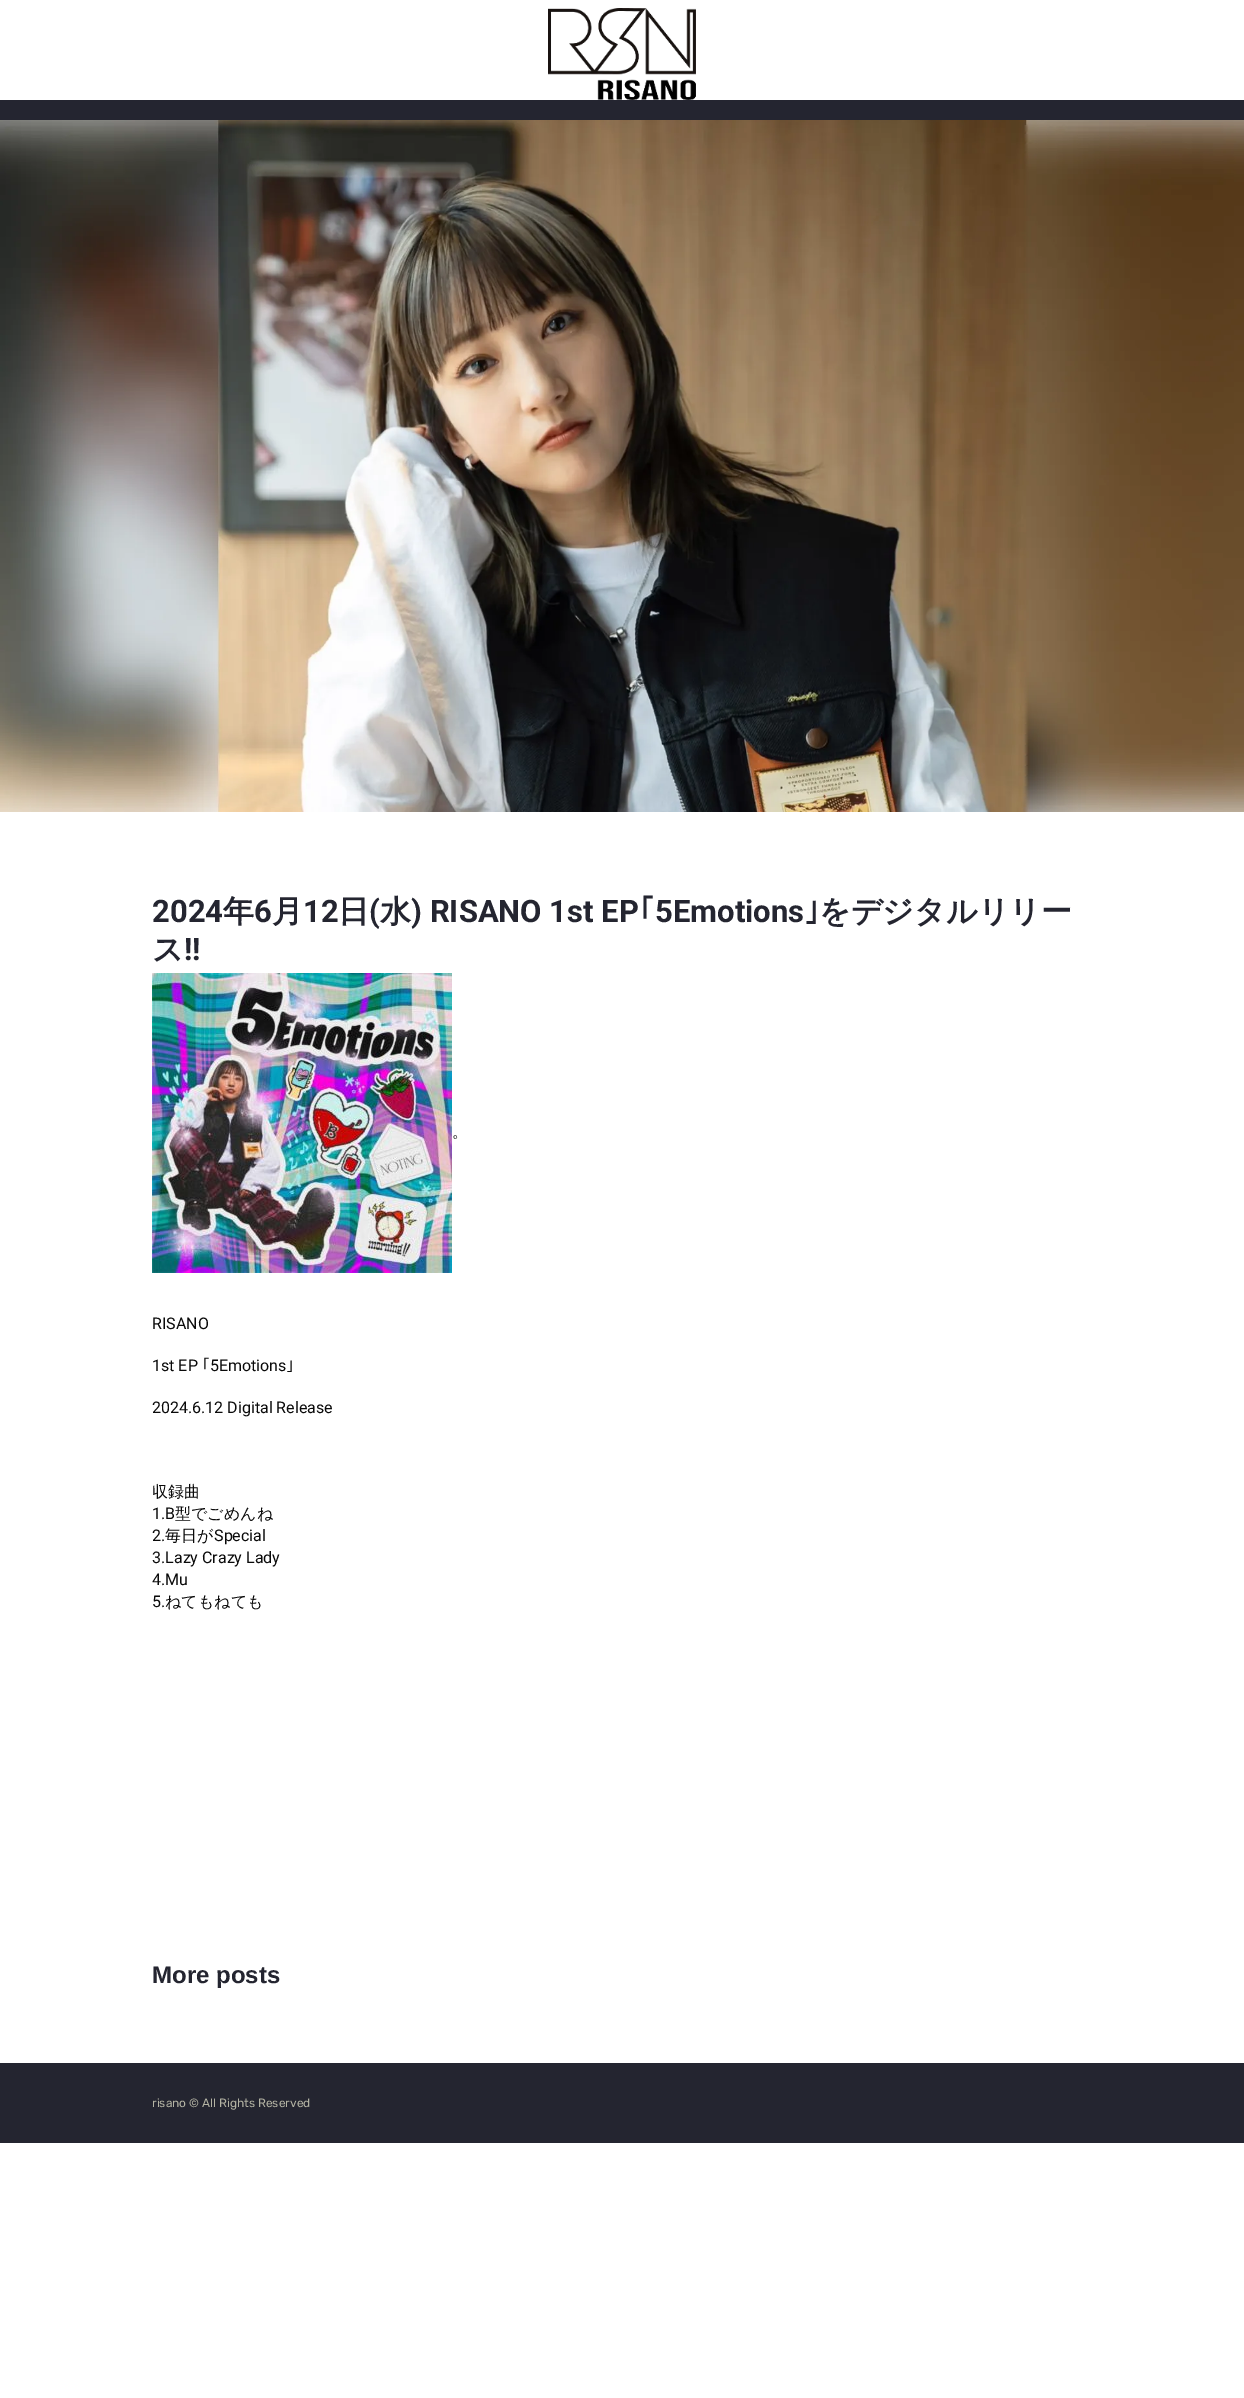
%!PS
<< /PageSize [1244 2398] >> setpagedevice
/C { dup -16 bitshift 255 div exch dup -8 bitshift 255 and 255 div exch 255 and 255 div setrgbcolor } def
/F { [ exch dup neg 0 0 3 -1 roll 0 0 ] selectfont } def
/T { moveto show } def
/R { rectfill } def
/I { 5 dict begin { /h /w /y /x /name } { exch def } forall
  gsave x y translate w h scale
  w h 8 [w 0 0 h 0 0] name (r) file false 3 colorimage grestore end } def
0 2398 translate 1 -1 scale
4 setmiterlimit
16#FFFFFF C
0 0 1244 2398 R
(1.rgb) 548 8 148 92 I
16#242530 C
0 100 1244 20 R
(2.rgb) 0 120 1244 692 I
/Roboto-Bold 31 F
(2024) 152 922 T
/WenQuanYiZenHei-Bold 31 F
(年) 223 922 T
/Roboto-Bold 31 F
(6) 254 922 T
/WenQuanYiZenHei-Bold 31 F
(月) 272 922 T
/Roboto-Bold 31 F
(12) 303 922 T
/WenQuanYiZenHei-Bold 31 F
(日) 338 922 T
/Roboto-Bold 31 F
(\() 369 922 T
/WenQuanYiZenHei-Bold 31 F
(水) 380 922 T
/Roboto-Bold 31 F
(\) RISANO 1st EP) 411 922 T
/IPAPGothic-Bold 31 F
(｢) 639 922 T
/Roboto-Bold 31 F
(5Emotions) 655 922 T
/IPAPGothic-Bold 31 F
(｣) 804 922 T
/WenQuanYiZenHei-Bold 31 F
(をデジタルリリー) 819 922 T
(ス) 152 960 T
/Roboto-Bold 31 F
(!!) 184 960 T
(3.rgb) 152 973 300 300 I
/WenQuanYiZenHei-Medium 16 F
16#0A0A0A C
(。) 452 1137 T
/Roboto-Regular 16 F
(RISANO) 152 1329 T
(1st EP) 152 1371 T
/IPAPGothic-Regular 16 F
(｢) 202 1371 T
/Roboto-Regular 16 F
(5Emotions) 210 1371 T
/IPAPGothic-Regular 16 F
(｣) 286 1371 T
/Roboto-Regular 16 F
(2024.6.12 Digital Release) 152 1413 T
/WenQuanYiZenHei-Medium 16 F
(収録曲) 152 1497 T
/Roboto-Regular 16 F
(1.B) 152 1519 T
/WenQuanYiZenHei-Medium 16 F
(型でごめんね) 175 1519 T
/Roboto-Regular 16 F
(2.) 152 1541 T
/WenQuanYiZenHei-Medium 16 F
(毎日が) 165 1541 T
/Roboto-Regular 16 F
(Special) 214 1541 T
(3.Lazy Crazy Lady) 152 1563 T
(4.Mu) 152 1585 T
(5.) 152 1607 T
/WenQuanYiZenHei-Medium 16 F
(ねてもねても) 165 1607 T
/LiberationSans-Bold 24 F
16#242530 C
(More posts) 152 1983 T
0 2063 1244 80 R
/Rubik-Regular 12 F
16#B3B3A3 C
(risano © All Rights Reserved) 152 2107 T
showpage
